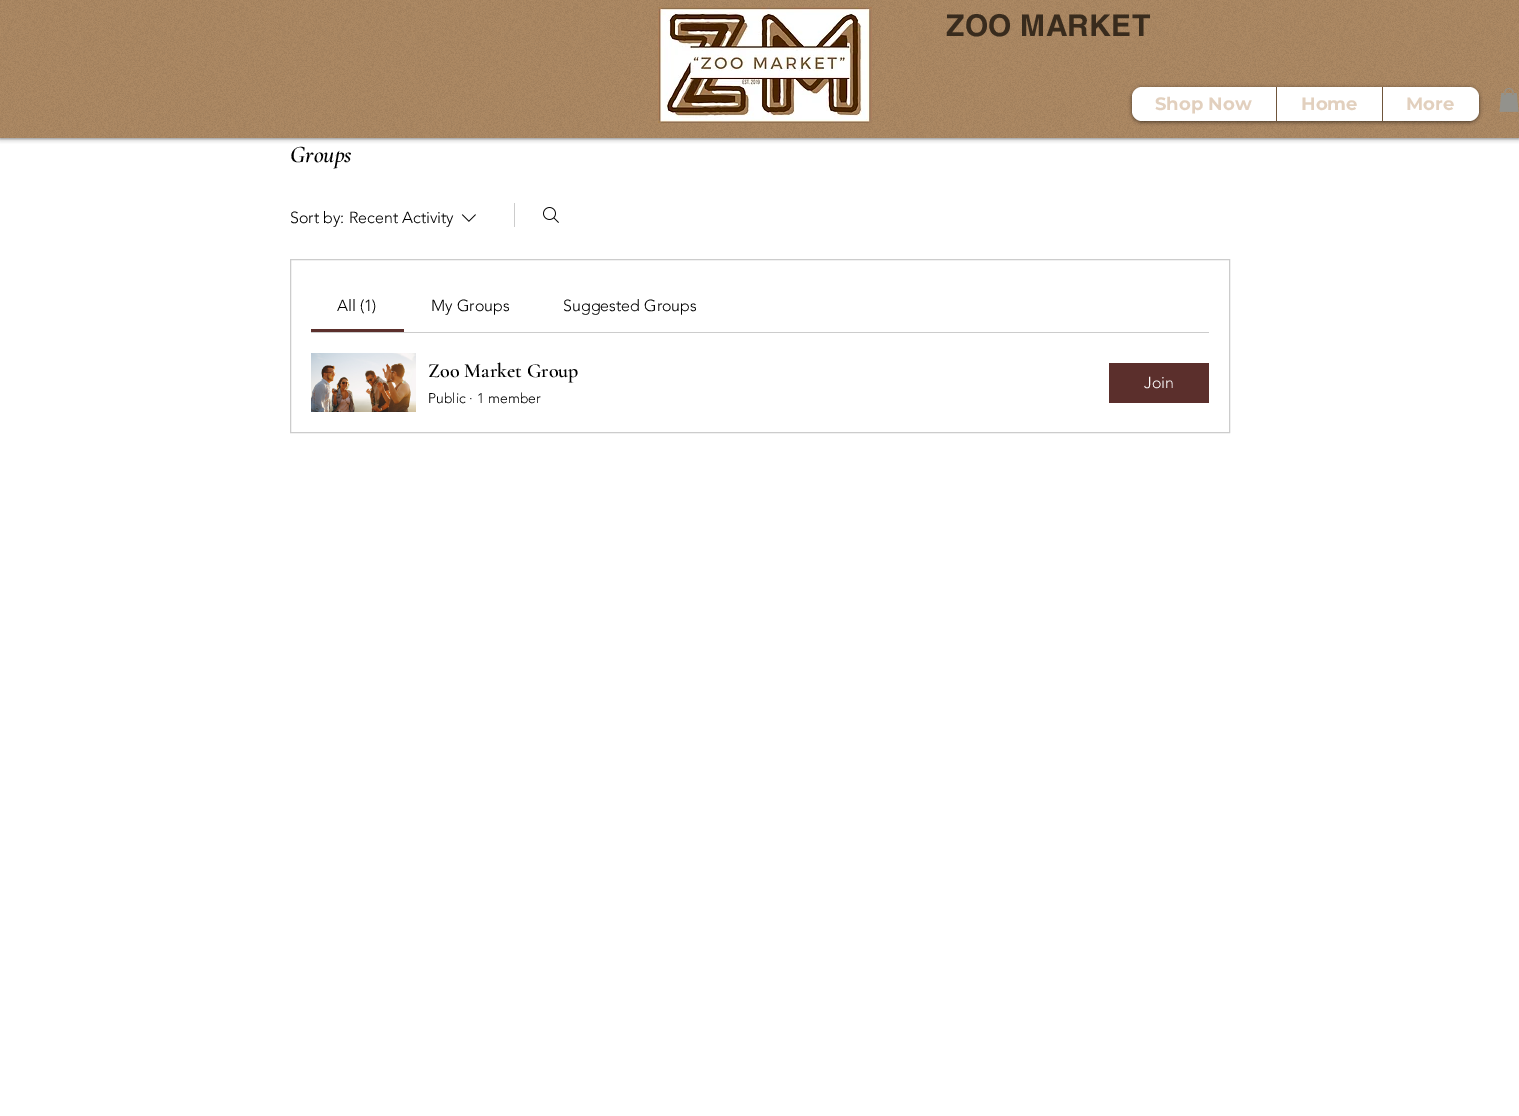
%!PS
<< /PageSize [1519 1116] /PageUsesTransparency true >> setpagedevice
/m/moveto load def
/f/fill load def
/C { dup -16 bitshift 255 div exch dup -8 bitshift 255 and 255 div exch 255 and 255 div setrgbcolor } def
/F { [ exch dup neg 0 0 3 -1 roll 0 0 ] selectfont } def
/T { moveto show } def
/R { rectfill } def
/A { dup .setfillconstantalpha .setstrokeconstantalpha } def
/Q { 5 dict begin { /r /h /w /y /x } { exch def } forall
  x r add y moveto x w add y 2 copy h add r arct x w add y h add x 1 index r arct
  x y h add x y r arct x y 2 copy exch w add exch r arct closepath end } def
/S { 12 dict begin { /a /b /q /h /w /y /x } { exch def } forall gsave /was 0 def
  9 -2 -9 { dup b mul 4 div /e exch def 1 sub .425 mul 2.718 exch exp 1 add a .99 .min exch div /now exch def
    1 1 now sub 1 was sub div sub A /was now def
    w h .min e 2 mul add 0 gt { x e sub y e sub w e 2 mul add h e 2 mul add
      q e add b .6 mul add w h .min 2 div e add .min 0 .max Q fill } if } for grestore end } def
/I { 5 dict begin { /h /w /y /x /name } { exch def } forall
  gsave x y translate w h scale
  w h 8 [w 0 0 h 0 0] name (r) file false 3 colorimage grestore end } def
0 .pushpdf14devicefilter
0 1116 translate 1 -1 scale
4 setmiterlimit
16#FFFFFF C
0 0 1519 1116 R
16#000000 C
0 0 1519 138 0 2.5 .7 S
16#AC8862 C
0 0 1519 138 R
(1.rgb) 0 0 1519 138 I
(2.rgb) 658 7 214 116 I
/helvetica-Bold 30 F
16#382B1D C
946 36 m .25 0 (ZOO MARKET) ashow
16#000000 C
1132 88 347 34 10 2 .6 S
16#FFFFFF C
1132 87 347 34 10 Q f
/Montserrat-Bold 18 F
16#E2D0BE C
(Shop Now) 1155 110 T
16#6F553B C
1276 87 1 34 R
16#E2D0BE C
(Home) 1301 110 T
16#6F553B C
1382 87 1 34 R
16#E2D0BE C
(More) 1406 110 T
(3.rgb) 1499 88 20 24 I
/CormorantGaramond-SemiBoldItalic 24 F
16#000000 C
(Groups) 290 162 T
/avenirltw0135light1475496-Light 16 F
(Sort by: Recent Activity) 290 223 T
(4.rgb) 461 214 15 8 I
16#CCCCCC C
514 203 1 24 R
(5.rgb) 543 207 16 16 I
290.5 259.5 939 173 rectstroke
311 332 898 1 R
16#5B2F2C C
311 329 93 3 R
16#000000 C
(All \(1\)) 337 311 T
(My Groups) 431 311 T
(Suggested Groups) 563 311 T
(6.rgb) 311 353 105 59 I
/CormorantGaramond-SemiBold 20 F
(Zoo Market Group) 428 377 T
/avenirltw0135light1475496-Light 14 F
(Public) 428 403 T
(·) 469 403 T
(1 member) 477 403 T
16#5B2F2C C
1109 363 100 40 R
/avenirltw0135light1475496-Light 16 F
16#FFFFFF C
(Join) 1144 388 T
.poppdf14devicefilter showpage
